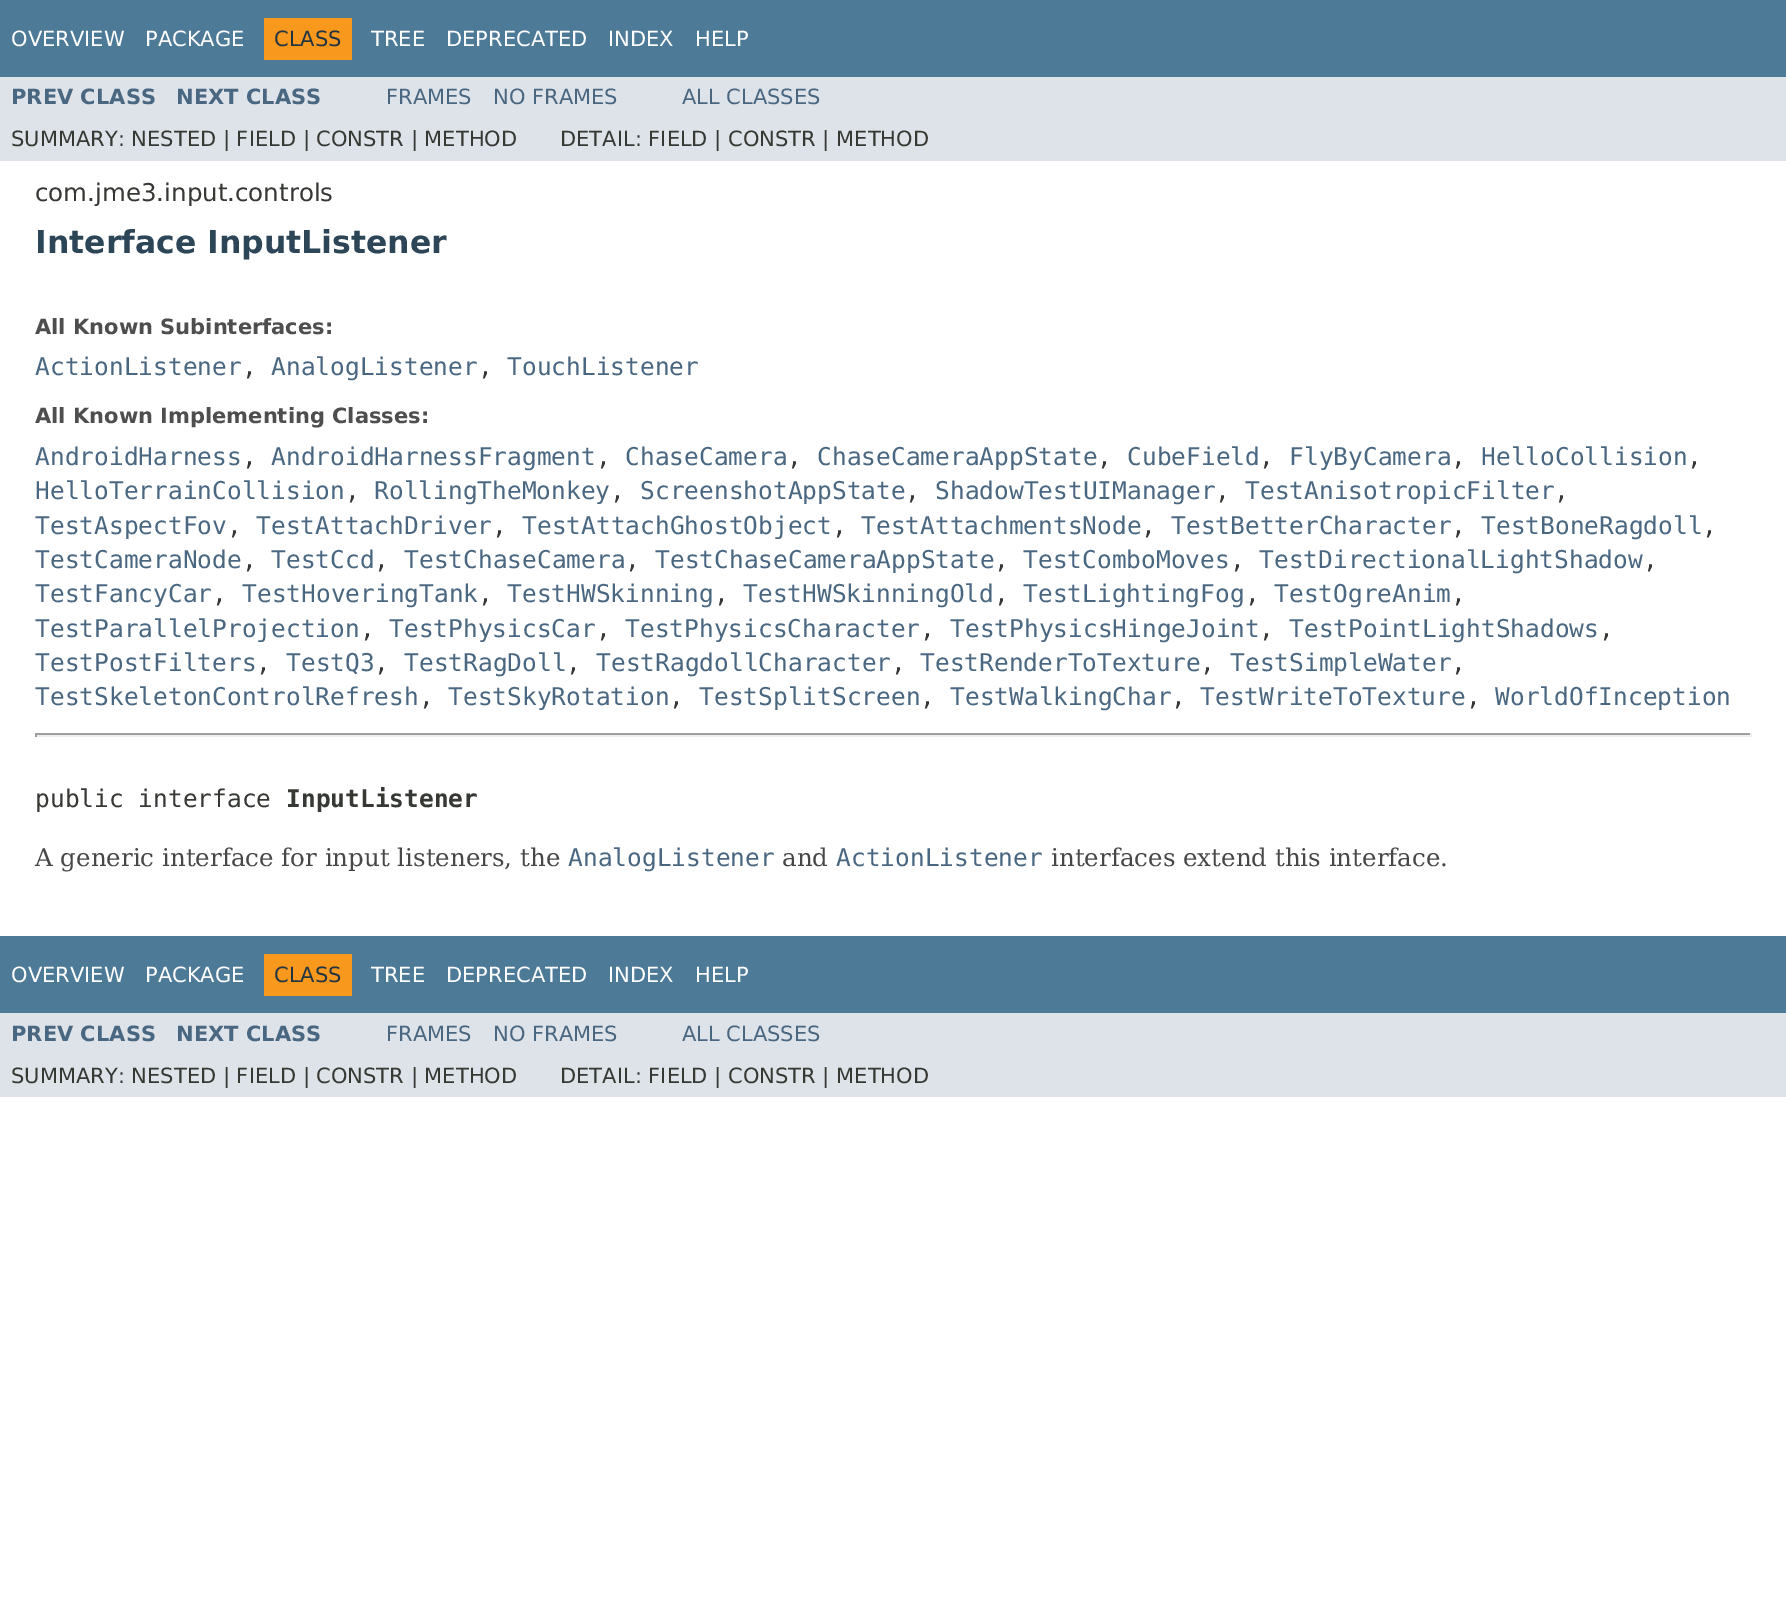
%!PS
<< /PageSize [1786 1616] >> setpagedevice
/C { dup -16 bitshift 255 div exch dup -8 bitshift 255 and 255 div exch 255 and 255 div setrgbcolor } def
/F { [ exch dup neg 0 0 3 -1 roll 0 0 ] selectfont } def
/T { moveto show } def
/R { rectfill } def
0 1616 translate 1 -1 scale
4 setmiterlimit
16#FFFFFF C
0 0 1786 1616 R
16#4D7A97 C
0 0 1786 77 R
/DejaVuSans-Regular 21 F
16#FFFFFF C
(OVERVIEW) 11 46 T
(PACKAGE) 145 46 T
16#F8981D C
264 18 88 42 R
16#253441 C
(CLASS) 274 46 T
16#FFFFFF C
(TREE) 371 46 T
(DEPRECATED) 446 46 T
(INDEX) 608 46 T
(HELP) 695 46 T
16#DEE3E9 C
0 77 1786 84 R
/DejaVuSans-Bold 21 F
16#4A6782 C
(PREV CLASS) 11 104 T
(NEXT CLASS) 176 104 T
/DejaVuSans-Regular 21 F
(FRAMES) 386 104 T
(NO FRAMES) 493 104 T
(ALL CLASSES) 682 104 T
16#353833 C
(SUMMARY: NESTED | FIELD | CONSTR | METHOD) 11 146 T
(DETAIL: FIELD | CONSTR | METHOD) 560 146 T
/DejaVuSans-Regular 24.5 F
(com.jme3.input.controls) 35 201 T
/DejaVuSans-Bold 31.5 F
16#2C4557 C
(Interface InputListener) 35 253 T
/DejaVuSans-Bold 21 F
16#4E4E4E C
(All Known Subinterfaces:) 35 334 T
/DejaVuSansMono-Regular 24.5 F
16#4A6782 C
(ActionListener) 35 375 T
16#353833 C
(,) 242 375 T
16#4A6782 C
(AnalogListener) 271 375 T
16#353833 C
(,) 478 375 T
16#4A6782 C
(TouchListener) 507 375 T
/DejaVuSans-Bold 21 F
16#4E4E4E C
(All Known Implementing Classes:) 35 423 T
/DejaVuSansMono-Regular 24.5 F
16#4A6782 C
(AndroidHarness) 35 465 T
16#353833 C
(,) 242 465 T
16#4A6782 C
(AndroidHarnessFragment) 271 465 T
16#353833 C
(,) 596 465 T
16#4A6782 C
(ChaseCamera) 625 465 T
16#353833 C
(,) 787 465 T
16#4A6782 C
(ChaseCameraAppState) 817 465 T
16#353833 C
(,) 1097 465 T
16#4A6782 C
(CubeField) 1127 465 T
16#353833 C
(,) 1259 465 T
16#4A6782 C
(FlyByCamera) 1289 465 T
16#353833 C
(,) 1451 465 T
16#4A6782 C
(HelloCollision) 1481 465 T
16#353833 C
(,) 1687 465 T
16#4A6782 C
(HelloTerrainCollision) 35 499 T
16#353833 C
(,) 345 499 T
16#4A6782 C
(RollingTheMonkey) 374 499 T
16#353833 C
(,) 610 499 T
16#4A6782 C
(ScreenshotAppState) 640 499 T
16#353833 C
(,) 905 499 T
16#4A6782 C
(ShadowTestUIManager) 935 499 T
16#353833 C
(,) 1215 499 T
16#4A6782 C
(TestAnisotropicFilter) 1245 499 T
16#353833 C
(,) 1554 499 T
16#4A6782 C
(TestAspectFov) 35 534 T
16#353833 C
(,) 227 534 T
16#4A6782 C
(TestAttachDriver) 256 534 T
16#353833 C
(,) 492 534 T
16#4A6782 C
(TestAttachGhostObject) 522 534 T
16#353833 C
(,) 832 534 T
16#4A6782 C
(TestAttachmentsNode) 861 534 T
16#353833 C
(,) 1141 534 T
16#4A6782 C
(TestBetterCharacter) 1171 534 T
16#353833 C
(,) 1451 534 T
16#4A6782 C
(TestBoneRagdoll) 1481 534 T
16#353833 C
(,) 1702 534 T
16#4A6782 C
(TestCameraNode) 35 568 T
16#353833 C
(,) 242 568 T
16#4A6782 C
(TestCcd) 271 568 T
16#353833 C
(,) 374 568 T
16#4A6782 C
(TestChaseCamera) 404 568 T
16#353833 C
(,) 625 568 T
16#4A6782 C
(TestChaseCameraAppState) 655 568 T
16#353833 C
(,) 994 568 T
16#4A6782 C
(TestComboMoves) 1023 568 T
16#353833 C
(,) 1230 568 T
16#4A6782 C
(TestDirectionalLightShadow) 1259 568 T
16#353833 C
(,) 1643 568 T
16#4A6782 C
(TestFancyCar) 35 602 T
16#353833 C
(,) 212 602 T
16#4A6782 C
(TestHoveringTank) 242 602 T
16#353833 C
(,) 478 602 T
16#4A6782 C
(TestHWSkinning) 507 602 T
16#353833 C
(,) 714 602 T
16#4A6782 C
(TestHWSkinningOld) 743 602 T
16#353833 C
(,) 994 602 T
16#4A6782 C
(TestLightingFog) 1023 602 T
16#353833 C
(,) 1245 602 T
16#4A6782 C
(TestOgreAnim) 1274 602 T
16#353833 C
(,) 1451 602 T
16#4A6782 C
(TestParallelProjection) 35 637 T
16#353833 C
(,) 360 637 T
16#4A6782 C
(TestPhysicsCar) 389 637 T
16#353833 C
(,) 596 637 T
16#4A6782 C
(TestPhysicsCharacter) 625 637 T
16#353833 C
(,) 920 637 T
16#4A6782 C
(TestPhysicsHingeJoint) 950 637 T
16#353833 C
(,) 1259 637 T
16#4A6782 C
(TestPointLightShadows) 1289 637 T
16#353833 C
(,) 1599 637 T
16#4A6782 C
(TestPostFilters) 35 671 T
16#353833 C
(,) 256 671 T
16#4A6782 C
(TestQ3) 286 671 T
16#353833 C
(,) 374 671 T
16#4A6782 C
(TestRagDoll) 404 671 T
16#353833 C
(,) 566 671 T
16#4A6782 C
(TestRagdollCharacter) 596 671 T
16#353833 C
(,) 891 671 T
16#4A6782 C
(TestRenderToTexture) 920 671 T
16#353833 C
(,) 1200 671 T
16#4A6782 C
(TestSimpleWater) 1230 671 T
16#353833 C
(,) 1451 671 T
16#4A6782 C
(TestSkeletonControlRefresh) 35 705 T
16#353833 C
(,) 419 705 T
16#4A6782 C
(TestSkyRotation) 448 705 T
16#353833 C
(,) 669 705 T
16#4A6782 C
(TestSplitScreen) 699 705 T
16#353833 C
(,) 920 705 T
16#4A6782 C
(TestWalkingChar) 950 705 T
16#353833 C
(,) 1171 705 T
16#4A6782 C
(TestWriteToTexture) 1200 705 T
16#353833 C
(,) 1466 705 T
16#4A6782 C
(WorldOfInception) 1495 705 T
16#9F9F9F C
35 733 1717 2 R
16#EEEEEE C
1750 733 2 4 R
35 735 1717 2 R
16#9F9F9F C
35 733 2 4 R
16#353833 C
(public interface) 35 807 T
/DejaVuSansMono-Bold 24.5 F
(InputListener) 286 807 T
/DejaVuSerif-Regular 24.5 F
16#474747 C
(A generic interface for input listeners, the) 35 866 T
/DejaVuSansMono-Regular 24.5 F
16#4A6782 C
(AnalogListener) 568 866 T
/DejaVuSerif-Regular 24.5 F
16#474747 C
(and) 782 866 T
/DejaVuSansMono-Regular 24.5 F
16#4A6782 C
(ActionListener) 836 866 T
/DejaVuSerif-Regular 24.5 F
16#474747 C
(interfaces extend this interface.) 1051 866 T
16#4D7A97 C
0 936 1786 77 R
/DejaVuSans-Regular 21 F
16#FFFFFF C
(OVERVIEW) 11 982 T
(PACKAGE) 145 982 T
16#F8981D C
264 954 88 42 R
16#253441 C
(CLASS) 274 982 T
16#FFFFFF C
(TREE) 371 982 T
(DEPRECATED) 446 982 T
(INDEX) 608 982 T
(HELP) 695 982 T
16#DEE3E9 C
0 1013 1786 84 R
/DejaVuSans-Bold 21 F
16#4A6782 C
(PREV CLASS) 11 1041 T
(NEXT CLASS) 176 1041 T
/DejaVuSans-Regular 21 F
(FRAMES) 386 1041 T
(NO FRAMES) 493 1041 T
(ALL CLASSES) 682 1041 T
16#353833 C
(SUMMARY: NESTED | FIELD | CONSTR | METHOD) 11 1083 T
(DETAIL: FIELD | CONSTR | METHOD) 560 1083 T
showpage
